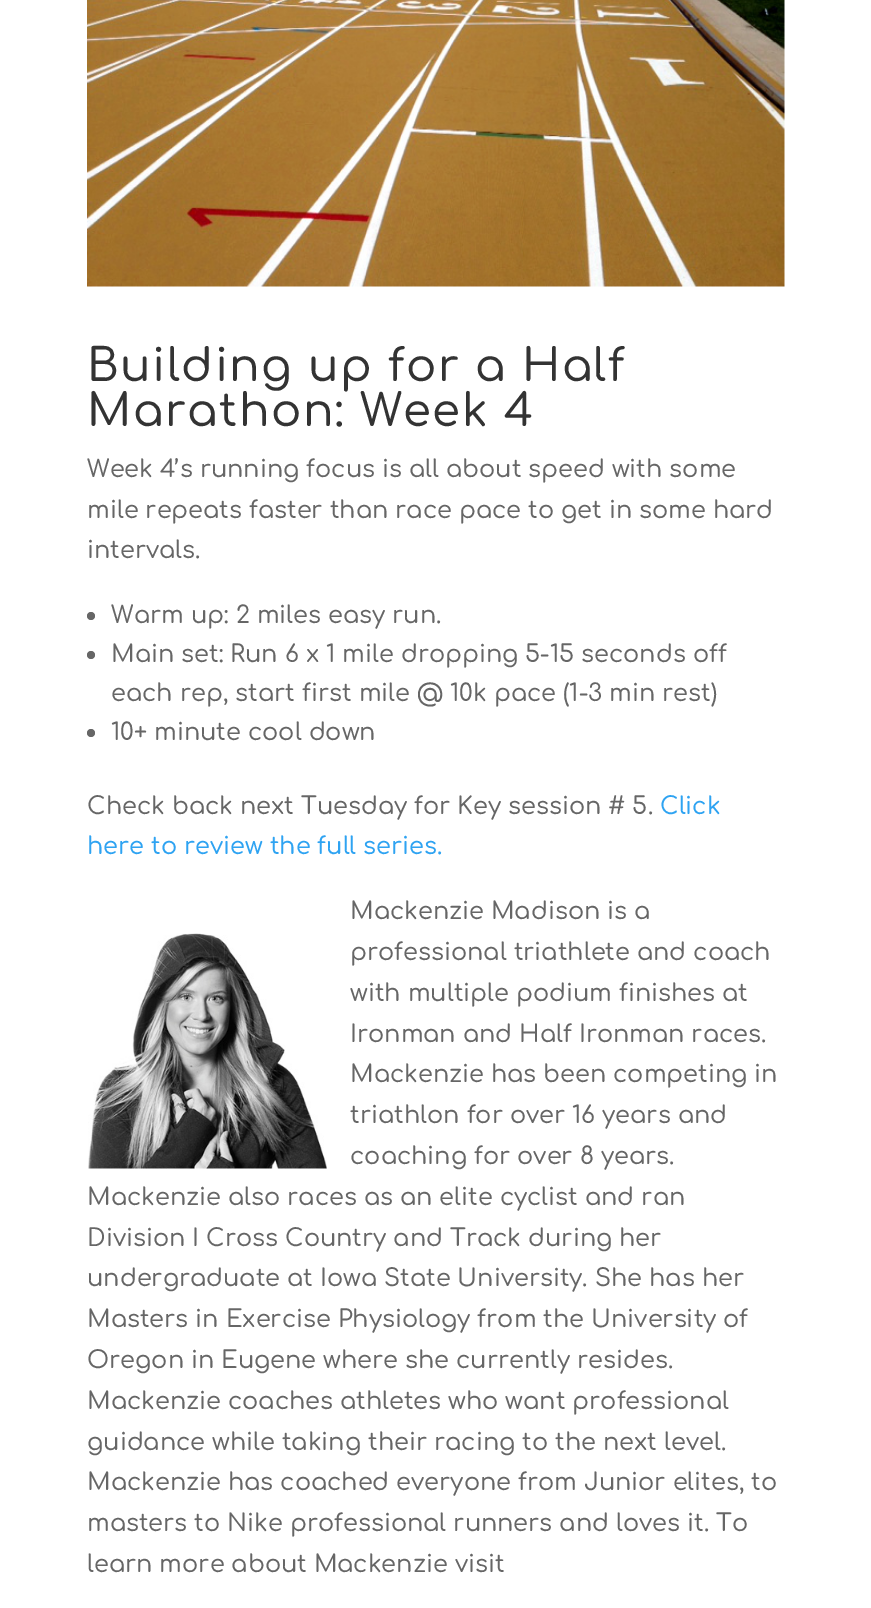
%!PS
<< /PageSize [871 1608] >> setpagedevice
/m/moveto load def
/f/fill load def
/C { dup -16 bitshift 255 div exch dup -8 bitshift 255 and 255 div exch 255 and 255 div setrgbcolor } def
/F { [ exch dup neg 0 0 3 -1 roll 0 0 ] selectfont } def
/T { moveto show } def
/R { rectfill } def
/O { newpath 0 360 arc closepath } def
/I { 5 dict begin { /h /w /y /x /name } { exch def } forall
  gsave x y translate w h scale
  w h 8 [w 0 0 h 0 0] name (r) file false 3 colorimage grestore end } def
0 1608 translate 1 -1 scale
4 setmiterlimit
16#FFFFFF C
0 0 871 1608 R
(1.rgb) 87 0 698 287 I
/Comfortaa-Medium 45 F
16#333333 C
87 381 m 1.5 0 (Building up for a Half) ashow
87 426 m 1.5 0 (Marathon: Week 4) ashow
/Comfortaa-Medium 24 F
16#666666 C
(Week 4’s running focus is all about speed with some) 87 477 T
(mile repeats faster than race pace to get in some hard) 87 518 T
(intervals.) 87 558 T
91 616 4 O f
(Warm up: 2 miles easy run.) 111 623 T
91 655 4 O f
(Main set: Run 6 x 1 mile dropping 5-15 seconds off) 111 662 T
(each rep, start first mile @ 10k pace \(1-3 min rest\)) 111 701 T
91 733 4 O f
(10+ minute cool down) 111 740 T
(Check back next Tuesday for Key session # 5.) 87 814 T
16#2EA3F2 C
(Click) 660 814 T
(here to review the full series.) 87 854 T
16#666666 C
(Mackenzie Madison is a) 350 919 T
(2.rgb) 88 933 239 236 I
(professional triathlete and coach) 350 960 T
(with multiple podium finishes at) 350 1001 T
(Ironman and Half Ironman races.) 350 1042 T
(Mackenzie has been competing in) 350 1082 T
(triathlon for over 16 years and) 350 1123 T
(coaching for over 8 years.) 350 1164 T
(Mackenzie also races as an elite cyclist and ran) 87 1205 T
(Division I Cross Country and Track during her) 87 1246 T
(undergraduate at Iowa State University. She has her) 87 1286 T
(Masters in Exercise Physiology from the University of) 87 1327 T
(Oregon in Eugene where she currently resides.) 87 1368 T
(Mackenzie coaches athletes who want professional) 87 1409 T
(guidance while taking their racing to the next level.) 87 1450 T
(Mackenzie has coached everyone from Junior elites, to) 87 1490 T
(masters to Nike professional runners and loves it. To) 87 1531 T
(learn more about Mackenzie visit) 87 1572 T
showpage
